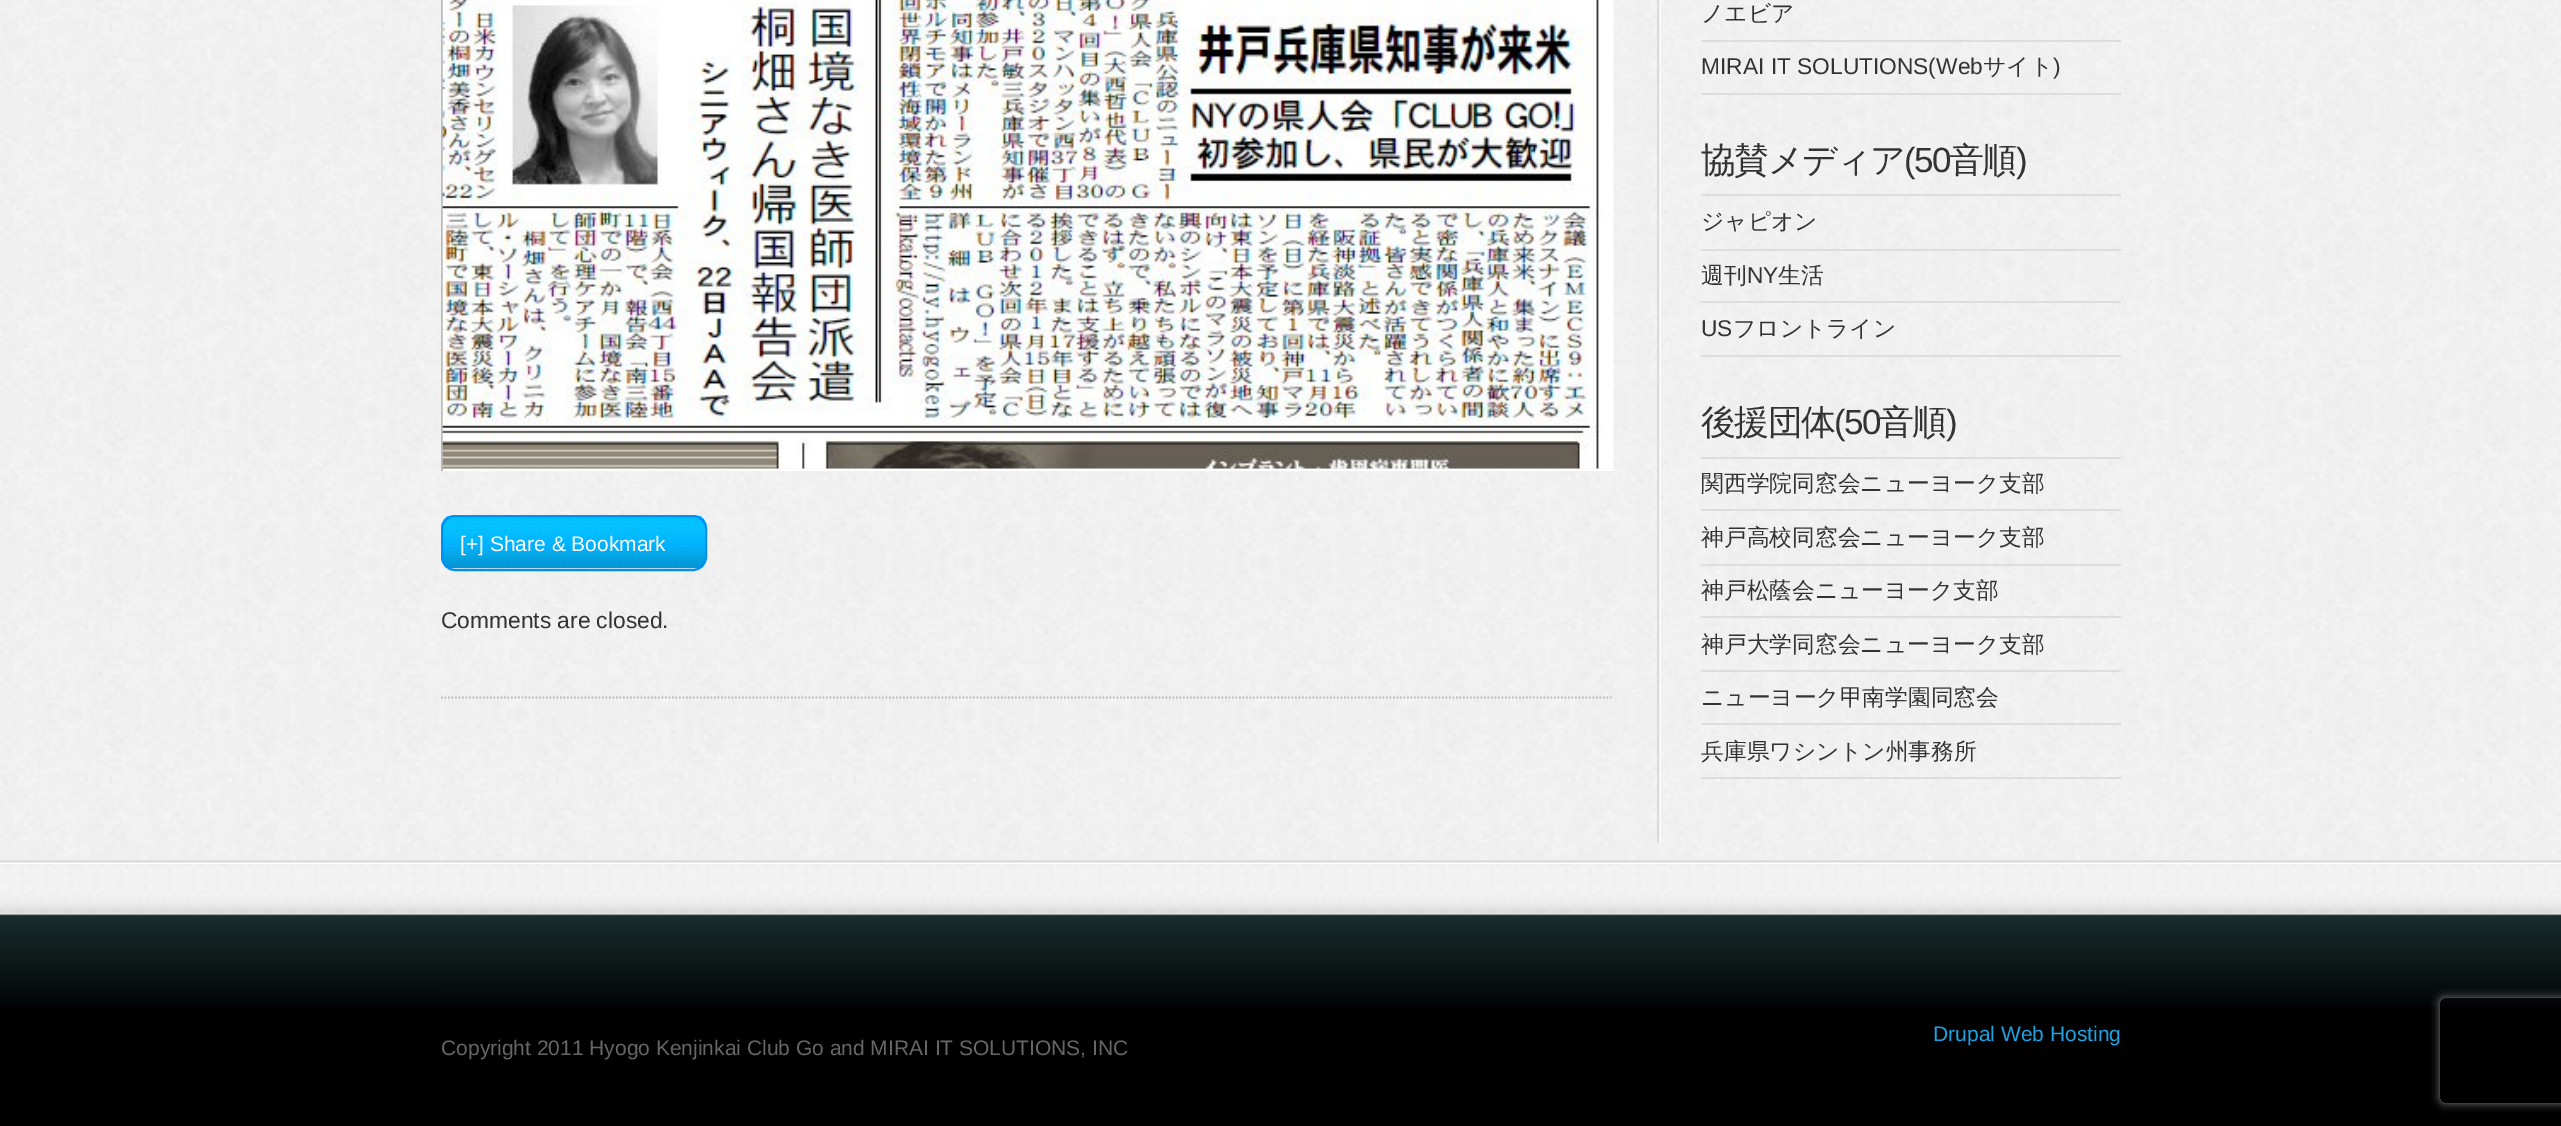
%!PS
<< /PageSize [2561 1126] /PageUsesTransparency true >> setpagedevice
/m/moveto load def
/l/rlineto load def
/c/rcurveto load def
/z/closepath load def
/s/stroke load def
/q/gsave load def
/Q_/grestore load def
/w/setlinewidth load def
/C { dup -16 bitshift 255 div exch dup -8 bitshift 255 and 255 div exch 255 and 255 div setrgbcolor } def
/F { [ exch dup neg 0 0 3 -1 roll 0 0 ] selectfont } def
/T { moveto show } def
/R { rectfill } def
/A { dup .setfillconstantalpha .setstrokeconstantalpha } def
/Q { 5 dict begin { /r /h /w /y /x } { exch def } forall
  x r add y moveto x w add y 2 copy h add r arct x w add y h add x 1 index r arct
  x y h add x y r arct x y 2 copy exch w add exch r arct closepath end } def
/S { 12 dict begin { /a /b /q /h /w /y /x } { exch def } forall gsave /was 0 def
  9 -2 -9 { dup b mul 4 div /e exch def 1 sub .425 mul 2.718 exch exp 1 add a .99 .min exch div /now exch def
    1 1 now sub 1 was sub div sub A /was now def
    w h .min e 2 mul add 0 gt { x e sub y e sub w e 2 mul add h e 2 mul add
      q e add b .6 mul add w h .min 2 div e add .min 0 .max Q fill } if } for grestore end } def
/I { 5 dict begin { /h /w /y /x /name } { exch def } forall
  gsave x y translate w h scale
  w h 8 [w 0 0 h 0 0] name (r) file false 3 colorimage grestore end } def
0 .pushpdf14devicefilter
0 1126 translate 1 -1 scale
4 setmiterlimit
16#FFFFFF C
0 0 2561 1126 R
(1.rgb) 0 0 2561 866 I
(2.rgb) 1657 0 4 843 I
16#BBBBBB C
1.8 w
[1.75 1.75] 0 setdash
441 697.5 m 1172.5 0 l s
16#FFFFFF C
441 469 1173 2 R
16#BBBBBB C
441 0 2 471 R
(3.rgb) 442 0 1172 469 I
(4.rgb) 441 515 266 54 I
16#008FF5 C
2 w
[] 0 setdash
442 516 264 54 13 Q s
/LiberationSans-Regular 21 F
16#FFFFFF C
([+] Share & Bookmark) 460 551 T
/LiberationSans-Regular 22.75 F
16#333333 C
(Comments are closed.) 441 628 T
16#DDDDDD C
1701 40 420 2 R
/WenQuanYiZenHei-Medium 22.75 F
16#333333 C
(ノエビア) 1701 21 T
16#DDDDDD C
1701 93 420 2 R
/LiberationSans-Regular 22.75 F
16#333333 C
(MIRAI IT SOLUTIONS\(Web) 1701 74 T
/WenQuanYiZenHei-Medium 22.75 F
(サイト) 1983 74 T
/LiberationSans-Regular 22.75 F
(\)) 2053 74 T
/WenQuanYiZenHei-Medium 35 F
1701 172 m -1.75 0 (協賛メディア) ashow
/LiberationSans-Regular 35 F
1904 172 m -1.75 0 (\(50) ashow
/WenQuanYiZenHei-Medium 35 F
1949 172 m -1.75 0 (音順) ashow
/LiberationSans-Regular 35 F
2016 172 m -1.75 0 (\)) ashow
16#DDDDDD C
1701 194 420 2 R
1701 249 420 2 R
/WenQuanYiZenHei-Medium 22.75 F
16#333333 C
(ジャピオン) 1701 229 T
16#DDDDDD C
1701 301 420 2 R
16#333333 C
(週刊) 1701 283 T
/LiberationSans-Regular 22.75 F
(NY) 1747 283 T
/WenQuanYiZenHei-Medium 22.75 F
(生活) 1778 283 T
16#DDDDDD C
1701 355 420 2 R
/LiberationSans-Regular 22.75 F
16#333333 C
(US) 1701 336 T
/WenQuanYiZenHei-Medium 22.75 F
(フロントライン) 1733 336 T
/WenQuanYiZenHei-Medium 35 F
1701 434 m -1.75 0 (後援団体) ashow
/LiberationSans-Regular 35 F
1834 434 m -1.75 0 (\(50) ashow
/WenQuanYiZenHei-Medium 35 F
1879 434 m -1.75 0 (音順) ashow
/LiberationSans-Regular 35 F
1946 434 m -1.75 0 (\)) ashow
16#DDDDDD C
1701 457 420 2 R
1701 509 420 2 R
/WenQuanYiZenHei-Medium 22.75 F
16#333333 C
(関西学院同窓会ニューヨーク支部) 1701 491 T
16#DDDDDD C
1701 564 420 2 R
16#333333 C
(神戸高校同窓会ニューヨーク支部) 1701 545 T
16#DDDDDD C
1701 616 420 2 R
16#333333 C
(神戸松蔭会ニューヨーク支部) 1701 598 T
16#DDDDDD C
1701 670 420 2 R
16#333333 C
(神戸大学同窓会ニューヨーク支部) 1701 652 T
16#DDDDDD C
1701 723 420 2 R
16#333333 C
(ニューヨーク甲南学園同窓会) 1701 705 T
16#DDDDDD C
1701 777 420 2 R
16#333333 C
(兵庫県ワシントン州事務所) 1701 759 T
(5.rgb) 0 860 2561 4 I
16#000000 C
0 1006 2561 120 R
(6.rgb) 0 866 2561 140 I
16#090E0F C
441 988 1680 3 R
/LiberationSans-Regular 21 F
16#1FA2E1 C
(Drupal Web Hosting) 1933 1041 T
16#666666 C
(Copyright 2011 Hyogo Kenjinkai Club Go and MIRAI IT SOLUTIONS, INC) 441 1055 T
q
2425 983 m 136 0 l 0 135 l -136 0 l z 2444 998 m 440 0 l 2 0 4 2 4 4 c 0 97 l 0 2 -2 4 -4 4 c -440 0 l -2 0 -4 -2 -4 -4 c 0 -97 l 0 -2 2 -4 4 -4 c z eoclip newpath
16#808080 C
2440 998 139 105 4 4.5 1 S
Q_
.poppdf14devicefilter showpage
